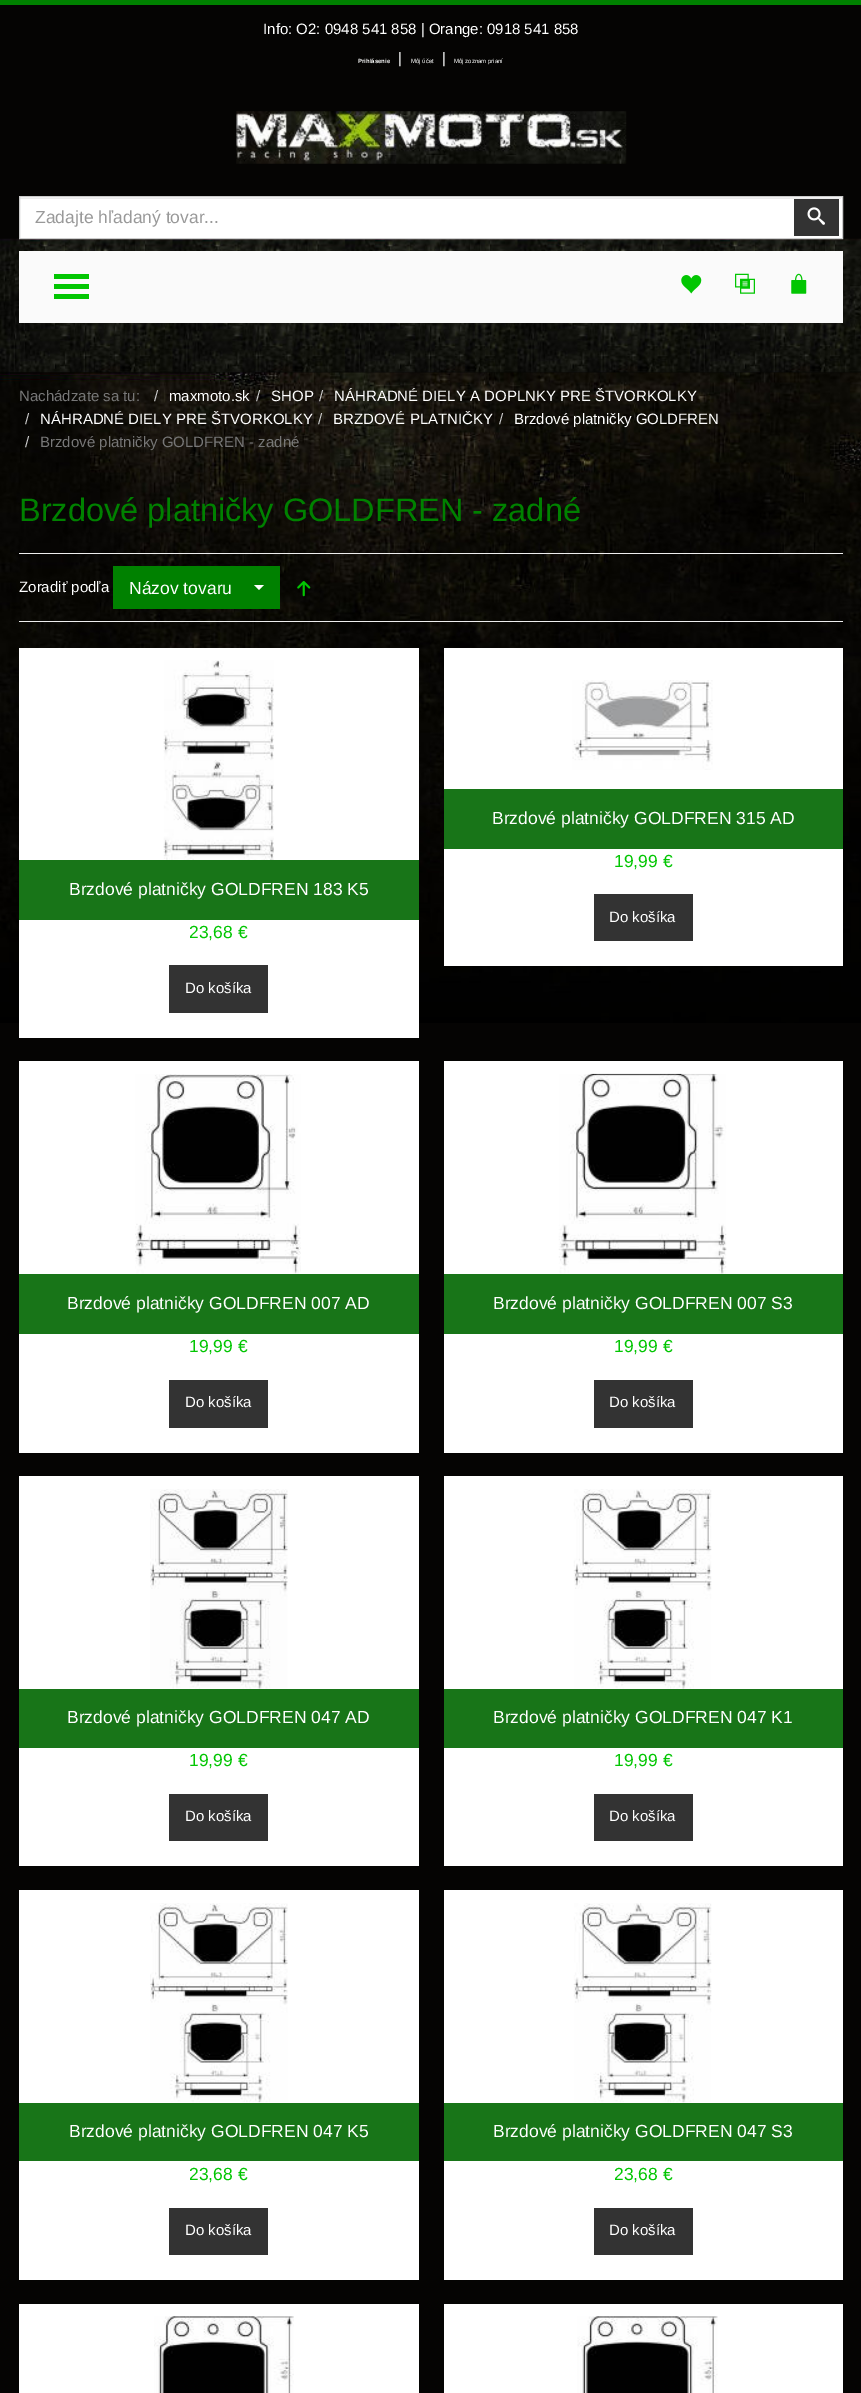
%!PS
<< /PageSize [861 2393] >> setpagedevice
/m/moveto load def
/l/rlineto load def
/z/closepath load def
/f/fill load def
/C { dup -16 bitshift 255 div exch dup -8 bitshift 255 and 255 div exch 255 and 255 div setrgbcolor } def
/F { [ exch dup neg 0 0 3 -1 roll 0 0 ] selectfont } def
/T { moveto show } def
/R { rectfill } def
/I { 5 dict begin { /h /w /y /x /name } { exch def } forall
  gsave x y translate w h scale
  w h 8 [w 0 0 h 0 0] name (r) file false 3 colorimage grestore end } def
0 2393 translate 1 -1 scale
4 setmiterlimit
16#050403 C
0 0 861 2393 R
16#008100 C
0 0 861 5 R
/LiberationSans-Regular 15 F
16#FFFFFF C
(Info: O2: 0948 541 858 | Orange: 0918 541 858) 263 34 T
/LiberationSans-Bold 6 F
(Prihlásenie) 358 63 T
/LiberationSans-Regular 15 F
(|) 398 63 T
/LiberationSans-Regular 6 F
(Môj účet) 411 63 T
/LiberationSans-Regular 15 F
(|) 442 63 T
/LiberationSans-Regular 6 F
(Môj zoznam prianí) 454 63 T
(1.rgb) 0 238 861 135 I
(2.rgb) 236 111 391 53 I
20 197 822 41 R
16#ECECEC C
20 198 821 1 R
16#CCCCCC C
19.5 196.5 823 42 rectstroke
/LiberationSans-Regular 17.5 F
16#999999 C
(Zadajte hľadaný tovar...) 35 223 T
16#333333 C
794 199 45 37 R
(3.rgb) 807 207 18 18 I
16#FAFAFA C
19 251 824 72 R
16#02C602 C
54 274 m 35 0 l 0 5 l -35 0 l z 54 284 m 35 0 l 0 5 l -35 0 l z 54 294 m 35 0 l 0 5 l -35 0 l z f
(4.rgb) 681 275 21 19 I
(5.rgb) 735 273 20 21 I
(6.rgb) 791 273 16 21 I
(7.rgb) 0 372 861 651 I
/LiberationSans-Regular 15 F
16#777777 C
(Nachádzate sa tu:) 19 401 T
16#CCCCCC C
(/) 154 401 T
16#FFFFFF C
(maxmoto.sk) 169 401 T
16#CCCCCC C
(/) 256 401 T
16#FFFFFF C
(SHOP) 271 401 T
16#CCCCCC C
(/) 319 401 T
16#FFFFFF C
(NÁHRADNÉ DIELY A DOPLNKY PRE ŠTVORKOLKY) 334 401 T
16#CCCCCC C
(/) 25 424 T
16#FFFFFF C
(NÁHRADNÉ DIELY PRE ŠTVORKOLKY) 40 424 T
16#CCCCCC C
(/) 318 424 T
16#FFFFFF C
(BRZDOVÉ PLATNIČKY) 333 424 T
16#CCCCCC C
(/) 499 424 T
16#FFFFFF C
(Brzdové platničky GOLDFREN) 514 424 T
16#CCCCCC C
(/) 25 447 T
16#777777 C
(Brzdové platničky GOLDFREN - zadné) 40 447 T
/LiberationSans-Regular 32.5 F
16#008100 C
(Brzdové platničky GOLDFREN - zadné) 19 521 T
16#EEEEEE C
19 553 824 1 R
19 621 824 1 R
/LiberationSans-Regular 15 F
16#FFFFFF C
(Zoradiť podľa) 19 592 T
16#008100 C
113 566 167 43 R
/LiberationSans-Regular 17.5 F
16#FFFFFF C
(Názov tovaru) 129 594 T
254 585 m 10 0 l -5 5 l z f
(8.rgb) 297 581 14 16 I
444 648 399 318 R
(9.rgb) 572 680 141 90 I
16#187518 C
444 789 399 60 R
16#FFFFFF C
(Brzdové platničky GOLDFREN 315 AD) 492 824 T
16#02C602 C
(19,99 €) 614 867 T
16#333333 C
594 894 99 47 R
/LiberationSans-Regular 15 F
16#FFFFFF C
(Do košíka) 609 922 T
19 648 400 390 R
(10.rgb) 163 660 111 200 I
16#187518 C
19 860 400 60 R
/LiberationSans-Regular 17.5 F
16#FFFFFF C
(Brzdové platničky GOLDFREN 183 K5) 69 895 T
16#02C602 C
(23,68 €) 189 938 T
16#333333 C
169 965 99 48 R
/LiberationSans-Regular 15 F
16#FFFFFF C
(Do košíka) 185 993 T
19 1061 400 392 R
(11.rgb) 135 1074 166 200 I
16#187518 C
19 1274 400 60 R
/LiberationSans-Regular 17.5 F
16#FFFFFF C
(Brzdové platničky GOLDFREN 007 AD) 67 1309 T
16#02C602 C
(19,99 €) 189 1352 T
16#333333 C
169 1380 99 48 R
/LiberationSans-Regular 15 F
16#FFFFFF C
(Do košíka) 185 1407 T
444 1061 399 392 R
(12.rgb) 558 1073 169 201 I
16#187518 C
444 1274 399 60 R
/LiberationSans-Regular 17.5 F
16#FFFFFF C
(Brzdové platničky GOLDFREN 007 S3) 493 1309 T
16#02C602 C
(19,99 €) 614 1352 T
16#333333 C
594 1380 99 48 R
/LiberationSans-Regular 15 F
16#FFFFFF C
(Do košíka) 609 1407 T
19 1476 400 390 R
(13.rgb) 150 1489 138 200 I
16#187518 C
19 1689 400 59 R
/LiberationSans-Regular 17.5 F
16#FFFFFF C
(Brzdové platničky GOLDFREN 047 AD) 67 1723 T
16#02C602 C
(19,99 €) 189 1766 T
16#333333 C
169 1794 99 47 R
/LiberationSans-Regular 15 F
16#FFFFFF C
(Do košíka) 185 1821 T
444 1476 399 390 R
(14.rgb) 573 1489 139 200 I
16#187518 C
444 1689 399 59 R
/LiberationSans-Regular 17.5 F
16#FFFFFF C
(Brzdové platničky GOLDFREN 047 K1) 493 1723 T
16#02C602 C
(19,99 €) 614 1766 T
16#333333 C
594 1794 99 47 R
/LiberationSans-Regular 15 F
16#FFFFFF C
(Do košíka) 609 1821 T
19 1890 400 390 R
(15.rgb) 150 1903 138 200 I
16#187518 C
19 2103 400 58 R
/LiberationSans-Regular 17.5 F
16#FFFFFF C
(Brzdové platničky GOLDFREN 047 K5) 69 2137 T
16#02C602 C
(23,68 €) 189 2180 T
16#333333 C
169 2208 99 47 R
/LiberationSans-Regular 15 F
16#FFFFFF C
(Do košíka) 185 2235 T
444 1890 399 390 R
(16.rgb) 573 1903 139 200 I
16#187518 C
444 2103 399 58 R
/LiberationSans-Regular 17.5 F
16#FFFFFF C
(Brzdové platničky GOLDFREN 047 S3) 493 2137 T
16#02C602 C
(23,68 €) 614 2180 T
16#333333 C
594 2208 99 47 R
/LiberationSans-Regular 15 F
16#FFFFFF C
(Do košíka) 609 2235 T
19 2304 400 89 R
(17.rgb) 154 2316 140 77 I
444 2304 399 89 R
(18.rgb) 577 2316 141 77 I
showpage
